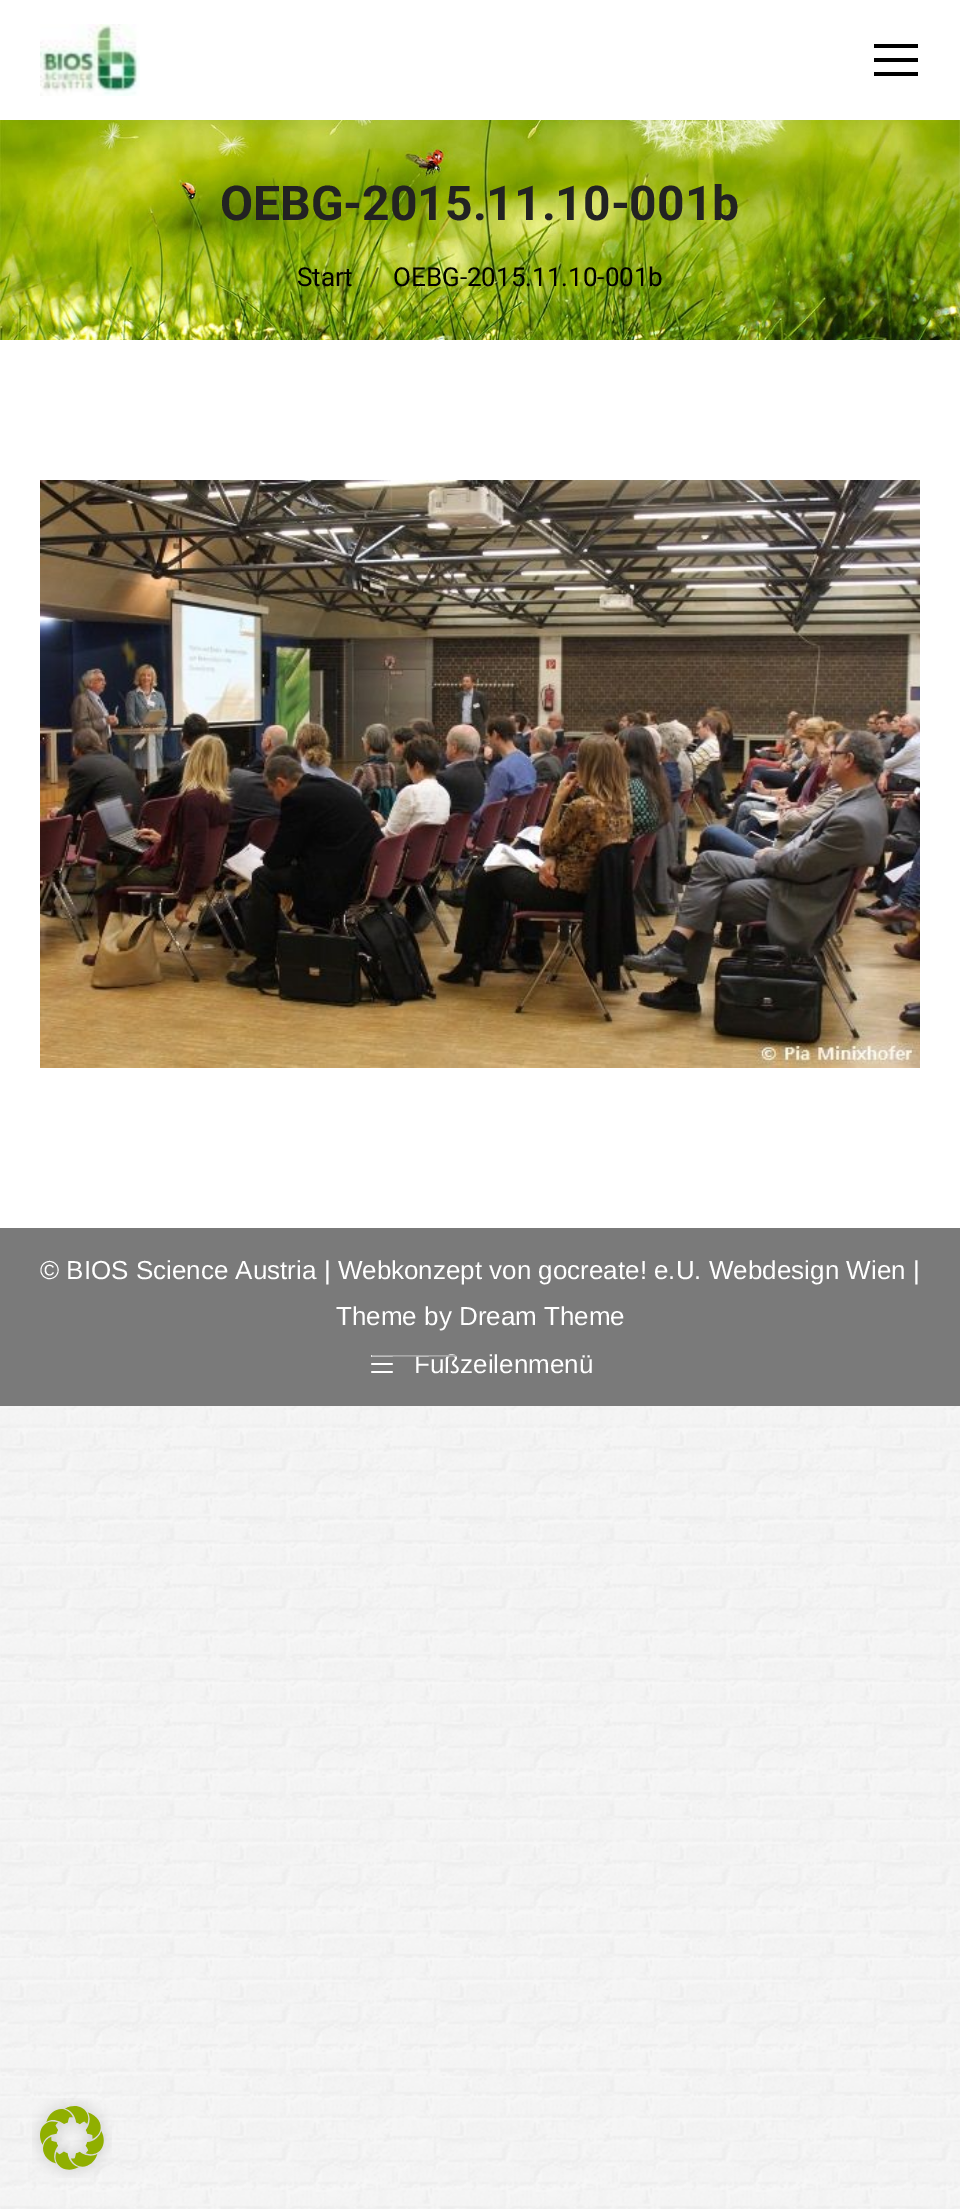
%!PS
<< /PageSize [960 2209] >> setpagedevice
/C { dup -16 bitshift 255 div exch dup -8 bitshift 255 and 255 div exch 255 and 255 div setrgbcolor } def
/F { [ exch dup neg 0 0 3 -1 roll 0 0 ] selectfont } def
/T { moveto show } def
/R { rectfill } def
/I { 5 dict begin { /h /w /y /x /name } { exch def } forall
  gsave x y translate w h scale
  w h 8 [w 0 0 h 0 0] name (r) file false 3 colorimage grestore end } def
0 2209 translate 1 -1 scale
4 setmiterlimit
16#FFFFFF C
0 0 960 2209 R
(1.rgb) 0 1406 960 803 I
(2.rgb) 40 24 100 72 I
16#000000 C
874 44 44 4 R
874 58 44 4 R
874 72 44 4 R
(3.rgb) 0 120 960 220 I
/Roboto-Bold 48 F
16#222222 C
(OEBG-2015.11.10-001b) 220 220 T
/Roboto-Regular 26 F
16#000000 C
(Start) 297 286 T
16#586311 C
(/) 369 286 T
16#000000 C
(OEBG-2015.11.10-001b) 393 286 T
(4.rgb) 40 480 880 588 I
16#7A7A7A C
0 1228 960 178 R
/LiberationSans-Regular 26 F
16#FFFFFF C
(© BIOS Science Austria | Webkonzept von gocreate! e.U. Webdesign Wien |) 40 1279 T
(Theme by Dream Theme) 336 1325 T
(Fußzeilenmenü) 414 1373 T
(5.rgb) 371 1355 22 18 I
/LiberationSans-Regular 28 F
16#A6A6A6 C
(———) 372 1363 T
(6.rgb) 32 2098 80 80 I
showpage
